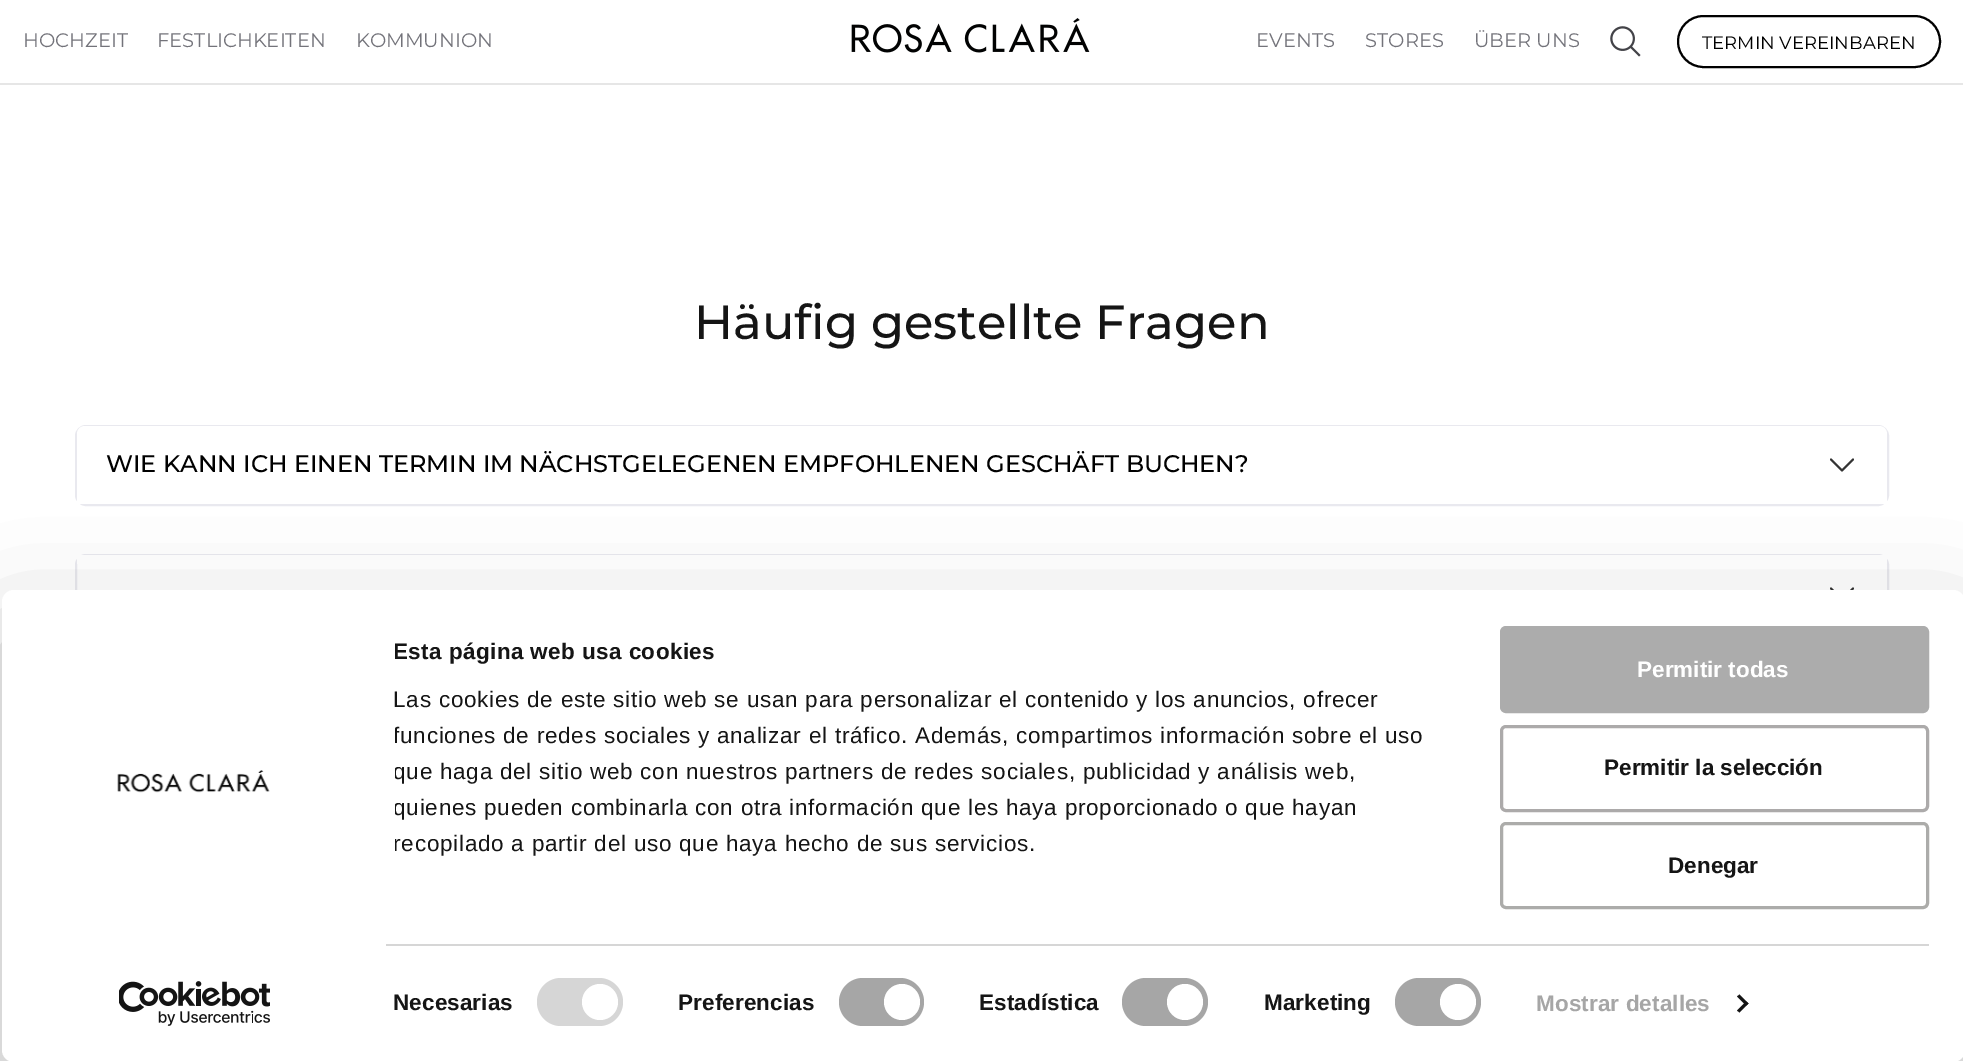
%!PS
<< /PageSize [1963 1061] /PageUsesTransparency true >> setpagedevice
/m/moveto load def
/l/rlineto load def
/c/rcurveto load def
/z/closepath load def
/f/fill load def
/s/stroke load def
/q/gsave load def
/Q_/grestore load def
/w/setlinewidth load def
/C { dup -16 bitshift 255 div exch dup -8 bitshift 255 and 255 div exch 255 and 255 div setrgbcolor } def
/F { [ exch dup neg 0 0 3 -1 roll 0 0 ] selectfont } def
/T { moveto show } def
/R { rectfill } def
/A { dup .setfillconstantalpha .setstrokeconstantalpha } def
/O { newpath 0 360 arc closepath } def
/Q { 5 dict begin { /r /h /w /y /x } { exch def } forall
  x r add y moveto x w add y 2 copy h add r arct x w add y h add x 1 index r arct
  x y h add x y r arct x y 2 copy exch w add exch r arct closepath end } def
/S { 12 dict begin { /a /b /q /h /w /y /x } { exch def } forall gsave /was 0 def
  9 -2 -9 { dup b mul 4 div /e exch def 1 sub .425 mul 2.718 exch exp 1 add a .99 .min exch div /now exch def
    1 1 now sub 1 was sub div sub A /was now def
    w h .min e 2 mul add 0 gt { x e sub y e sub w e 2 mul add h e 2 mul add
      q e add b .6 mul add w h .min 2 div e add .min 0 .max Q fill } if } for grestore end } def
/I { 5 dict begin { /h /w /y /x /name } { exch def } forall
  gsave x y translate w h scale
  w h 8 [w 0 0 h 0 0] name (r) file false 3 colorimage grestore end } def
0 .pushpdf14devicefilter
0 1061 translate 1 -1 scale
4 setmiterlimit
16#FFFFFF C
0 0 1963 1061 R
16#E6E6E6 C
0 83 1963 2 R
/Montserrat-Regular 19.5 F
16#73737A C
(HOCHZEIT) 23 47 T
(FESTLICHKEITEN) 157 47 T
(KOMMUNION) 356 47 T
(1.rgb) 851 18 239 35 I
(EVENTS) 1256 47 T
(STORES) 1365 47 T
(ÜBER UNS) 1474 47 T
(2.rgb) 1610 26 31 31 I
16#000000 C
2 w
1678 16 262 51 25.5 Q s
/Montserrat-Regular 18 F
(TERMIN VEREINBAREN) 1702 49 T
/Montserrat-Medium 48 F
16#151515 C
(Häufig gestellte Fragen) 694 339 T
16#E9E9EF C
76 426 1812 79 10 Q s
16#FFFFFF C
85 426 m 1794 0 l 4.5 0 8 3.5 8 8 c 0 70 l -1810 0 l 0 -70 l 0 -4.5 3.5 -8 8 -8 c z f
/Montserrat-Medium 24 F
16#000000 C
(WIE KANN ICH EINEN TERMIN IM NÄCHSTGELEGENEN EMPFOHLENEN GESCHÄFT BUCHEN?) 106 472 T
16#333333 C
1.9 w
1 setlinecap
1 setlinejoin
1831 459.5 m 11 11 l 11 -11 l s
16#E9E9EF C
2 w
0 setlinecap
0 setlinejoin
76 555 1812 79 10 Q s
16#FFFFFF C
77 555 1810 9 R
16#333333 C
1.9 w
1 setlinecap
1 setlinejoin
1831 588.5 m 11 11 l 11 -11 l s
q
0 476 m 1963 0 l 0 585 l -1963 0 l z 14 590 m 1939 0 l 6.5 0 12 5.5 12 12 c 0 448 l 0 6.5 -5.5 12 -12 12 c -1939 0 l -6.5 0 -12 -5.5 -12 -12 c 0 -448 l 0 -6.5 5.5 -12 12 -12 c z eoclip newpath
16#000000 C
2 635 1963 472 12 52.5 .3 S
Q_
16#FFFFFF C
2 590 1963 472 12 Q f
(3.rgb) 117 770 153 23 I
(4.rgb) 119 981 151 45 I
q
395 635 1062 265 rectclip
/LiberationSans-Bold 22.5 F
16#151515 C
393 659 m .4 0 (Esta página web usa cookies) ashow
Q_
/LiberationSans-Regular 22.5 F
16#151515 C
393 707 m .75 0 (Las cookies de este sitio web se usan para personalizar el contenido y los anuncios, ofrecer) ashow
q
395 635 1062 265 rectclip
393 743 m .75 0 (funciones de redes sociales y analizar el tráfico. Además, compartimos información sobre el uso) ashow
393 779 m .75 0 (que haga del sitio web con nuestros partners de redes sociales, publicidad y análisis web,) ashow
393 815 m .75 0 (quienes pueden combinarla con otra información que les haya proporcionado o que hayan) ashow
393 851 m .75 0 (recopilado a partir del uso que haya hecho de sus servicios.) ashow
Q_
16#D6D6D6 C
386 944 1543 2 R
/LiberationSans-Bold 22.5 F
16#151515 C
393 1010 m .1 0 (Necesarias) ashow
16#D6D6D6 C
537 978 86 48 24 Q f
16#FFFFFF C
600 1002 18 O f
16#151515 C
678 1010 m .1 0 (Preferencias) ashow
16#A6A6A6 C
839 978 85 48 24 Q f
16#FFFFFF C
902 1002 18 O f
16#151515 C
979 1010 m .1 0 (Estadística) ashow
16#A6A6A6 C
1122 978 86 48 24 Q f
16#FFFFFF C
1185 1002 18 O f
16#151515 C
1264 1010 m .1 0 (Marketing) ashow
16#A6A6A6 C
1395 978 86 48 24 Q f
16#FFFFFF C
1458 1002 18 O f
16#A6A6A6 C
1536 1011 m .1 0 (Mostrar detalles) ashow
16#141414 C
1739.5 994.5 m 9 9 l -2.5 2 l -9 -9 l z f
1746 1001.5 m 2.5 2 l -9 9 l -2.5 -2 l z f
16#ACACAC C
1501.5 627.5 426 84 4.5 Q q f Q_
3 w
0 setlinecap
0 setlinejoin
s
16#FFFFFF C
(Permitir todas) 1637 677 T
16#ACAAAA C
1501.5 726.5 426 84 4.5 Q s
16#151515 C
(Permitir la selección) 1604 775 T
16#ACACAA C
1501.5 823.5 426 84 4.5 Q s
16#151515 C
(Denegar) 1668 873 T
.poppdf14devicefilter showpage
